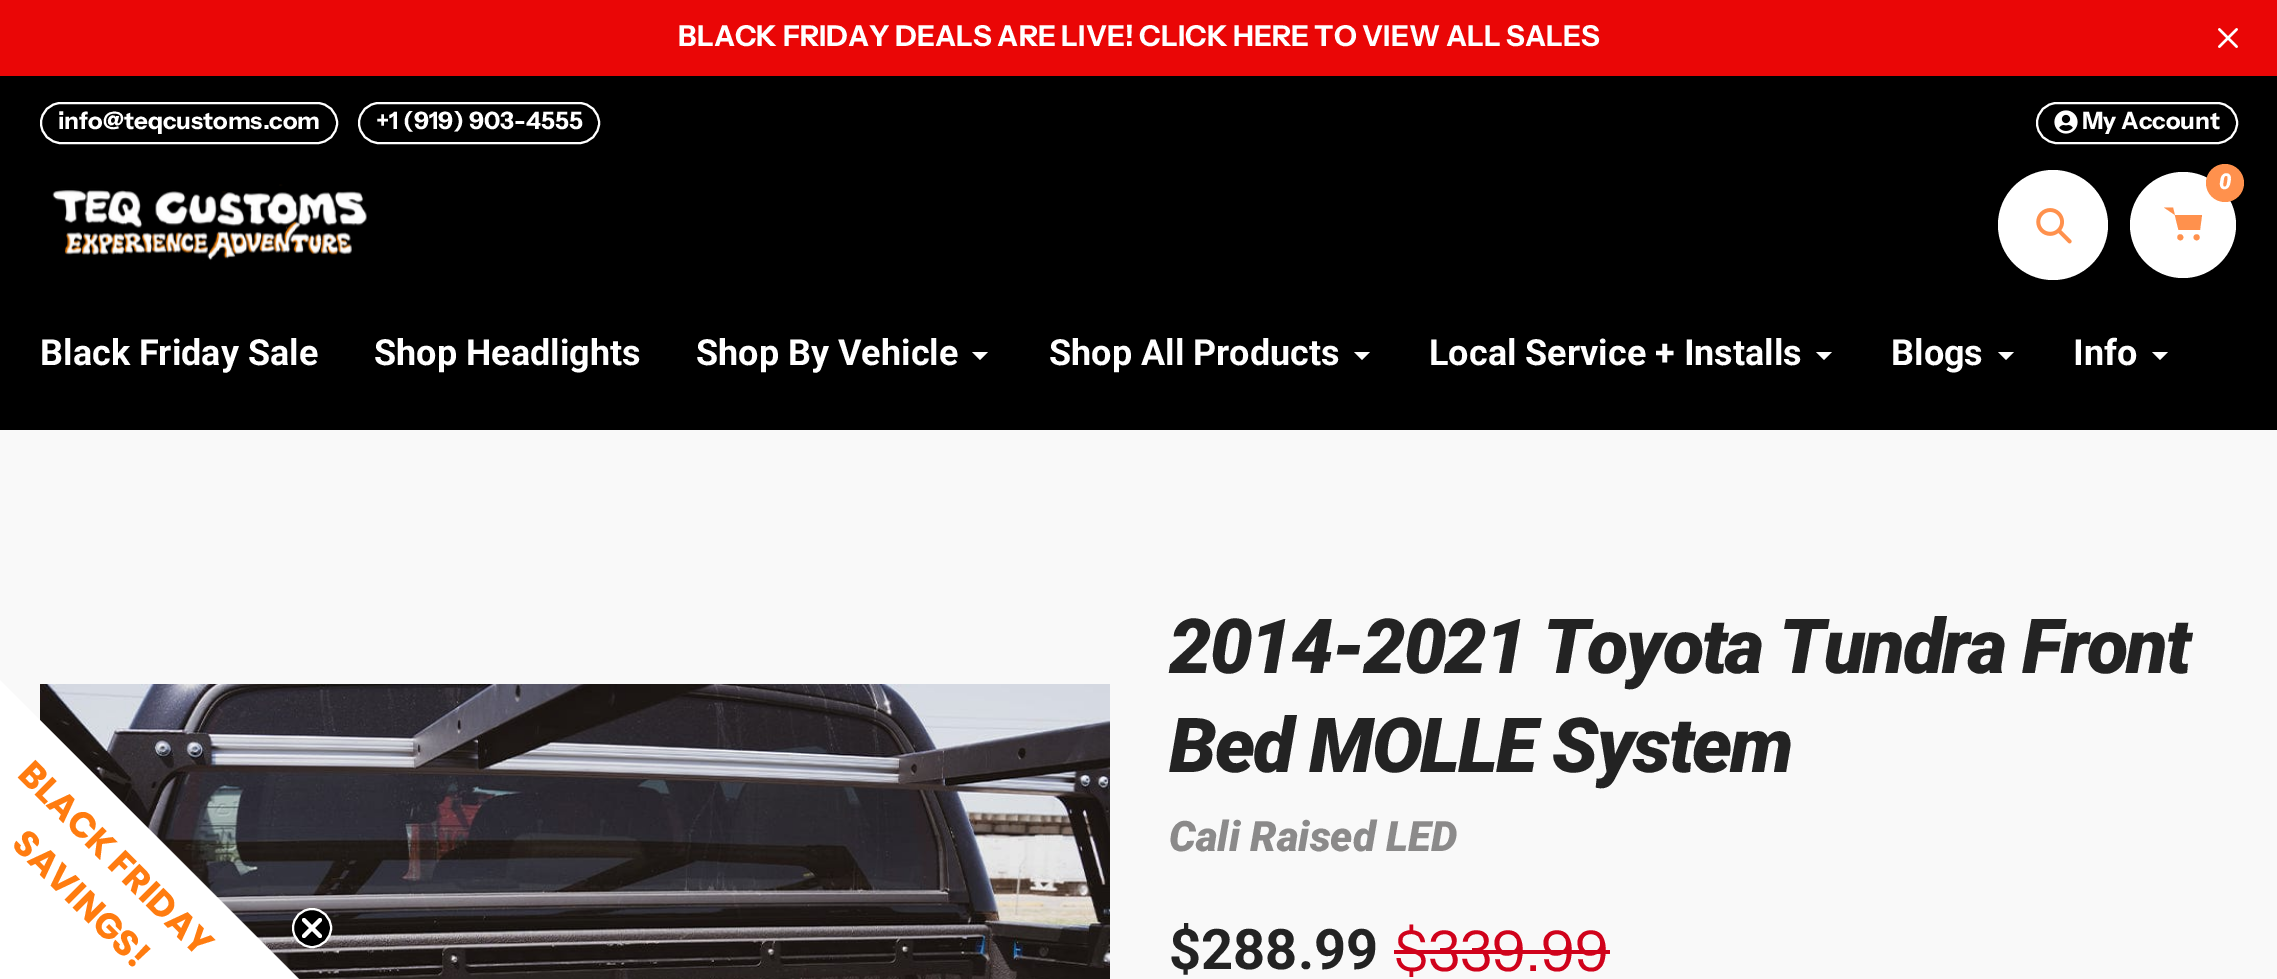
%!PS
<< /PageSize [2277 979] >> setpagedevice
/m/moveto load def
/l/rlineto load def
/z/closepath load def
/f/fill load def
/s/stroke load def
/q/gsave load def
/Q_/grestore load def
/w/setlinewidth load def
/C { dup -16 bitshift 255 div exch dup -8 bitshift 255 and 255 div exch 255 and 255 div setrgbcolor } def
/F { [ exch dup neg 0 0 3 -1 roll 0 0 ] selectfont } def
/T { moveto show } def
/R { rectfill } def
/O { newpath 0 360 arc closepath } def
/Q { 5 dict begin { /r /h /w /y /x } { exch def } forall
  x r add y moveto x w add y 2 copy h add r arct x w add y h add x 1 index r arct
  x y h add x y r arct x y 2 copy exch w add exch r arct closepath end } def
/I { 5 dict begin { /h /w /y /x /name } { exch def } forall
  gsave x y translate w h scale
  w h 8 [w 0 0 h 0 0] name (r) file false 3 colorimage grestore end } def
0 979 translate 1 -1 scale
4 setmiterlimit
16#F9F9F9 C
0 0 2277 979 R
16#EA0606 C
0 0 2277 76 R
/InstrumentSans-Bold 28.8 F
16#FFFFFF C
(BLACK FRIDAY DEALS ARE LIVE! CLICK HERE TO VIEW ALL SALES) 678 46 T
(1.rgb) 2218 28 20 20 I
16#000000 C
0 76 2277 354 R
16#FFFFFF C
2 w
41 103 296 40 20 Q s
/InstrumentSans-Bold 24 F
(info@teqcustoms.com) 58 129 T
359 103 240 40 20 Q s
(+1 \(919\) 903-4555) 376 129 T
2037 103 200 40 20 Q s
(2.rgb) 2054 110 24 24 I
(My Account) 2082 129 T
2053 225 55 O f
(3.rgb) 2036 208 36 36 I
2183 225 53 O f
16#FF914D C
2225 183 19 O f
/Roboto-BlackItalic 22 F
16#FFFFFF C
(0) 2219 189 T
16#FF914D C
2180.3 237.3 3 O f
2196.6 237.3 3 O f
2175 215 m 27 0 l -2 15 l -21.5 0 l -5.5 -22.5 l -9 0 l eofill
(4.rgb) 52 184 315 77 I
/Roboto-Bold 36 F
16#FFFFFF C
(Black Friday Sale) 40 365 T
(Shop Headlights) 374 365 T
(Shop By Vehicle) 696 365 T
988 352 m -8 8 l -8 -8 l f
(Shop All Products) 1049 365 T
1370 352 m -8 8 l -8 -8 l f
(Local Service + Installs) 1429 365 T
1832 352 m -8 8 l -8 -8 l f
(Blogs) 1891 365 T
2014 352 m -8 8 l -8 -8 l f
(Info) 2073 365 T
2168 352 m -8 8 l -8 -8 l f
(5.rgb) 40 684 1070 295 I
0 680 m 0 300 l 300 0 l z f
/Poppins-Bold 36 F
16#FF7C10 C
q 16 776 translate 45 rotate 0 0 m (BLACK FRIDAY) show Q_
q 10 845 translate 45 rotate 0 0 m (SAVINGS!) show Q_
16#000000 C
312 928 19 O q f Q_
16#FFFFFF C
s
4 w
1 setlinecap
1 setlinejoin
304 920 m 16 16 l 304 936 m 16 -16 l z s
/Roboto-BlackItalic 76 F
16#232323 C
1169 673 m -2 0 (2014-2021 Toyota Tundra Front) ashow
1169 772 m -2 0 (Bed MOLLE System) ashow
/Roboto-BlackItalic 42 F
16#8B8A8A C
(Cali Raised LED) 1169 851 T
/Roboto-Bold 56 F
16#232323 C
($288.99) 1169 969 T
/InstrumentSans-Regular 56 F
16#D0021B C
($339.99) 1394 971 T
1394 950 216 4 R
showpage
